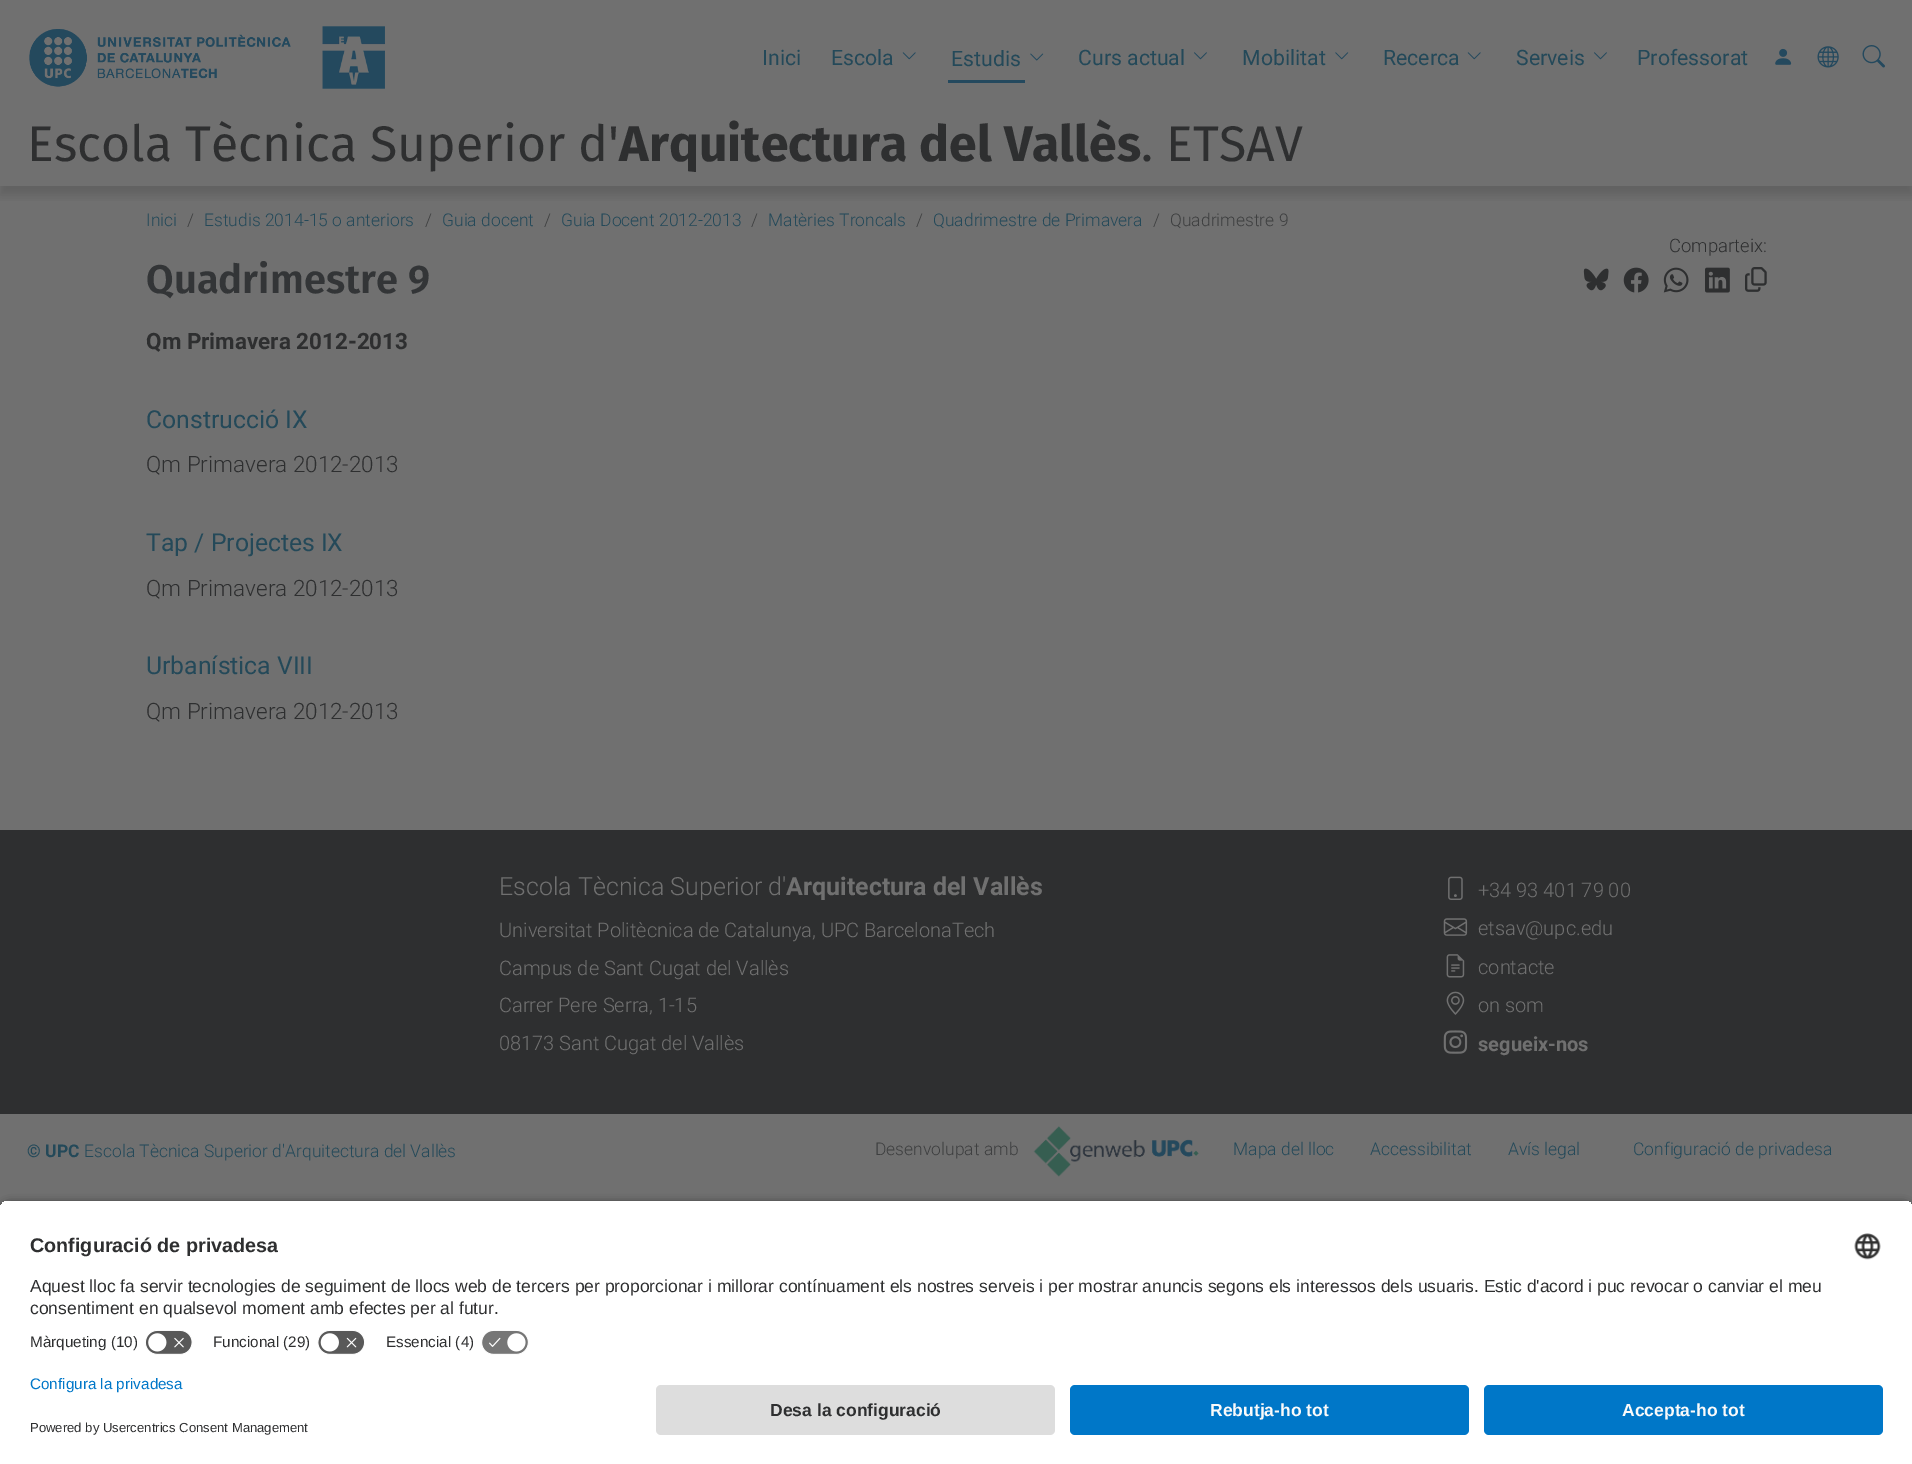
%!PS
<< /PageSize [1912 1464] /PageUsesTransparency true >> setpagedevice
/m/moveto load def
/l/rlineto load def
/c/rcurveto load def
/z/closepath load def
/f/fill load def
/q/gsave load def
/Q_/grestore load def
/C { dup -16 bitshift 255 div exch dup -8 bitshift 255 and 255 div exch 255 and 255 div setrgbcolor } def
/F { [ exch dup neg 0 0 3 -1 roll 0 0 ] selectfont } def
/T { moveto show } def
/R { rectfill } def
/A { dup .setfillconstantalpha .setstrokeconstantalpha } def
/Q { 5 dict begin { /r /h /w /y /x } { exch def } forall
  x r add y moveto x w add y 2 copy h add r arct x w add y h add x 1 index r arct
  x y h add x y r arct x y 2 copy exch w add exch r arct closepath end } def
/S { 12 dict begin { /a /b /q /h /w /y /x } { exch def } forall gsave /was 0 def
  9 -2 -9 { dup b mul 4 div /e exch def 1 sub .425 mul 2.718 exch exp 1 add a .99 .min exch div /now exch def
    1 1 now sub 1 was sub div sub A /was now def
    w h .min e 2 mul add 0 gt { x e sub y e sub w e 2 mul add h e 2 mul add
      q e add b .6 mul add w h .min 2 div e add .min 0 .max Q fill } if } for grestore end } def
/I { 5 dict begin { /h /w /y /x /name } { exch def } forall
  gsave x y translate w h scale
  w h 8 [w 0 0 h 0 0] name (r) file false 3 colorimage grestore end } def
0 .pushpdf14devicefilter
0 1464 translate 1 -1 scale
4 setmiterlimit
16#707070 C
0 0 1912 1464 R
(1.rgb) 29 29 262 58 I
(2.rgb) 322 26 63 63 I
/Roboto-Regular 21.25 F
16#244959 C
(Inici) 762 65 T
(Escola) 831 65 T
(3.rgb) 902 52 14 8 I
16#24495E C
948 80 77 3 R
16#244959 C
(Estudis) 951 66 T
(4.rgb) 1030 53 14 8 I
(Curs actual) 1078 65 T
(5.rgb) 1194 52 13 8 I
(Mobilitat) 1242 65 T
(6.rgb) 1335 52 14 8 I
(Recerca) 1383 65 T
(3.rgb) 1467 52 14 8 I
(Serveis) 1516 65 T
(5.rgb) 1594 52 13 8 I
(Professorat) 1637 65 T
(7.rgb) 1775 48 17 17 I
(8.rgb) 1817 46 22 22 I
(9.rgb) 1862 45 23 23 I
q
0 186 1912 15 rectclip
16#242424 C
0 124 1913 71 0 5 .2 S
Q_
/FiraSans-Regular 50 F
16#2E2F30 C
(Escola Tècnica Superior d') 27 161 T
/FiraSans-Bold 50 F
(Arquitectura del Vallès) 619 161 T
/FiraSans-Regular 50 F
(. ETSAV) 1141 161 T
/Roboto-Light 17.5 F
16#244959 C
(Inici) 146 226 T
16#3E3F40 C
(/) 187 226 T
16#244959 C
(Estudis 2014-15 o anteriors) 204 226 T
16#3E3F40 C
(/) 425 226 T
16#244959 C
(Guia docent) 442 226 T
16#3E3F40 C
(/) 544 226 T
16#244959 C
(Guia Docent 2012-2013) 561 226 T
16#3E3F40 C
(/) 751 226 T
16#244959 C
(Matèries Troncals) 768 226 T
16#3E3F40 C
(/) 916 226 T
16#244959 C
(Quadrimestre de Primavera) 933 226 T
16#3E3F40 C
(/) 1153 226 T
(Quadrimestre 9) 1170 226 T
/Roboto-Light 18.5 F
16#2E2F30 C
(Comparteix:) 1669 252 T
(10.rgb) 1583 268 26 23 I
(11.rgb) 1623 267 26 26 I
(12.rgb) 1663 267 26 26 I
(13.rgb) 1705 267 25 26 I
(14.rgb) 1745 267 22 25 I
/FiraSans-SemiBold 40 F
16#333537 C
(Quadrimestre 9) 146 293 T
/Roboto-Bold 22.5 F
16#2E2F30 C
(Qm Primavera 2012-2013) 146 349 T
/Roboto-Regular 24.75 F
16#244959 C
(Construcció IX) 146 428 T
/Roboto-Light 22.5 F
16#2E2F30 C
(Qm Primavera 2012-2013) 146 472 T
/Roboto-Regular 24.75 F
16#244959 C
(Tap / Projectes IX) 146 551 T
/Roboto-Light 22.5 F
16#2E2F30 C
(Qm Primavera 2012-2013) 146 596 T
/Roboto-Regular 24.75 F
16#244959 C
(Urbanística VIII) 146 674 T
/Roboto-Light 22.5 F
16#2E2F30 C
(Qm Primavera 2012-2013) 146 719 T
0 830 1912 284 R
/Roboto-Light 25 F
16#707070 C
(Escola Tècnica Superior d') 499 895 T
/Roboto-Bold 25 F
(Arquitectura del Vallès) 786 895 T
/Roboto-Light 20 F
(Universitat Politècnica de Catalunya, UPC BarcelonaTech) 499 937 T
(Campus de Sant Cugat del Vallès) 499 975 T
(Carrer Pere Serra, 1-15) 499 1012 T
(08173 Sant Cugat del Vallès) 499 1050 T
(15.rgb) 1448 876 15 24 I
(+34 93 401 79 00) 1478 897 T
(16.rgb) 1443 918 25 18 I
(etsav@upc.edu) 1478 935 T
(17.rgb) 1446 954 19 24 I
(contacte) 1478 974 T
(18.rgb) 1446 991 19 24 I
(on som) 1478 1012 T
(19.rgb) 1443 1030 25 24 I
/Roboto-Bold 20 F
(segueix-nos) 1478 1051 T
/Roboto-Bold 17.5 F
16#244959 C
(© UPC) 27 1157 T
/Roboto-Light 17.5 F
(Escola Tècnica Superior d'Arquitectura del Vallès) 84 1157 T
16#3E3F40 C
(Desenvolupat amb) 875 1155 T
(20.rgb) 1033 1126 166 51 I
16#244959 C
(Mapa del lloc) 1233 1155 T
(Accessibilitat) 1370 1155 T
(Avís legal) 1508 1155 T
(Configuració de privadesa) 1633 1155 T
16#000000 C
0 1204 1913 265 10 4.5 .8 S
q
10 1200 m 1893 0 l 5.5 0 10 4.5 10 10 c 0 165 l -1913 0 l 0 -165 l 0 -5.5 4.5 -10 10 -10 c z clip newpath
16#FFFFFF C
0 1201 1912 174 R
0 1201 1912 124 R
Q_
/LiberationSans-Bold 19.75 F
16#2E2F30 C
(Configuració de privadesa) 30 1252 T
(21.rgb) 1854 1233 27 27 I
/LiberationSans-Regular 17.5 F
(Aquest lloc fa servir tecnologies de seguiment de llocs web de tercers per proporcionar i millorar contínuament els nostres serveis i per mostrar anuncis segons els interessos dels usuaris. Estic d'acord i puc revocar o canviar el meu) 30 1292 T
(consentiment en qualsevol moment amb efectes per al futur.) 30 1314 T
/LiberationSans-Regular 15.25 F
(Màrqueting \(10\)) 30 1347 T
(22.rgb) 145 1330 48 25 I
(Funcional \(29\)) 213 1347 T
(23.rgb) 317 1330 48 25 I
(Essencial \(4\)) 386 1347 T
(24.rgb) 481 1330 48 25 I
16#FFFFFF C
0 1375 1912 89 R
16#0077C8 C
(Configura la privadesa) 30 1389 T
/LiberationSans-Regular 13.1 F
16#2E2F30 C
(Powered by Usercentrics Consent Management) 30 1432 T
16#DDDDDD C
656 1385 399 50 5 Q f
/LiberationSans-Bold 17.5 F
16#2E2F30 C
(Desa la configuració) 770 1416 T
16#0077C8 C
1070 1385 399 50 5 Q f
16#FAFAFA C
(Rebutja-ho tot) 1210 1416 T
16#0077C8 C
1484 1385 399 50 5 Q f
16#FAFAFA C
(Accepta-ho tot) 1622 1416 T
.poppdf14devicefilter showpage
